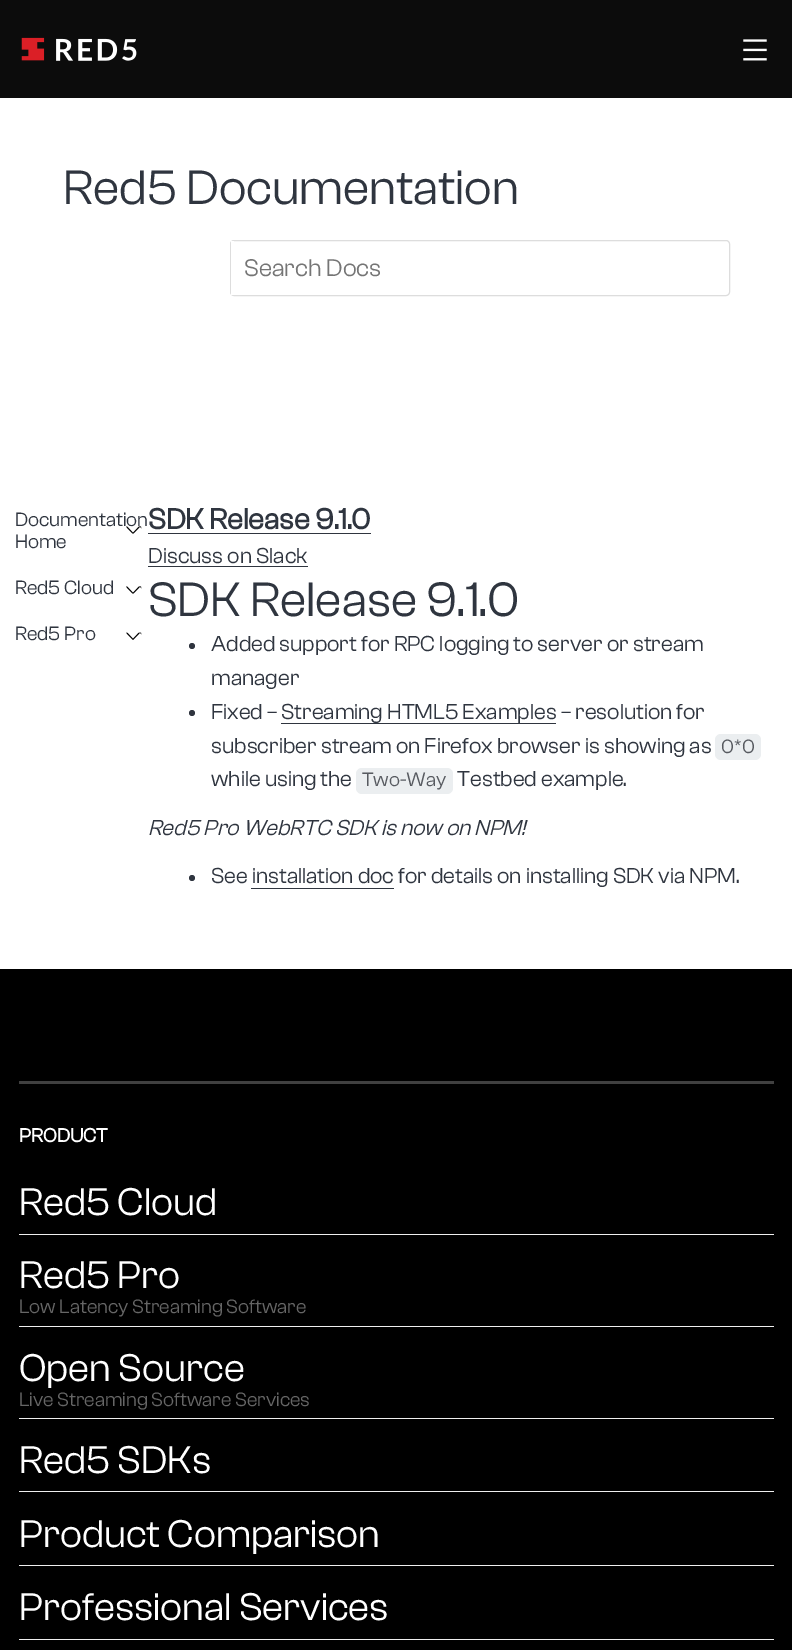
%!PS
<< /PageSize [792 1650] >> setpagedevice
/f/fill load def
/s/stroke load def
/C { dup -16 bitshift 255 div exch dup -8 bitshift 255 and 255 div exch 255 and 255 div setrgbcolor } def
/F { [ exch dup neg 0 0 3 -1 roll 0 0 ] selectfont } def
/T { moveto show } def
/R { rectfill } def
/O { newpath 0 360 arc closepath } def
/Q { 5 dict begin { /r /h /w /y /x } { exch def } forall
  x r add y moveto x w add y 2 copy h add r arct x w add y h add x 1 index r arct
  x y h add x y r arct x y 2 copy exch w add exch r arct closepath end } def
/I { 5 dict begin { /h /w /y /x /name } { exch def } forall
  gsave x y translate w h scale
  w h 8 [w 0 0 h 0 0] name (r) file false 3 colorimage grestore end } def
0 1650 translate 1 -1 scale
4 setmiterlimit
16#000000 C
0 0 792 1650 R
16#0C0C0C C
0 0 792 98 R
(1.rgb) 21 37 116 24 I
(2.rgb) 743 39 24 22 I
16#FFFFFF C
0 98 792 871 R
/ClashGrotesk-Regular 50 F
16#2F353F C
(Red5 Documentation) 63 204 T
16#DDDDDD C
230.5 240.5 499 55 3.5 Q s
16#FFFFFF C
231 241 3 54 R
/ClashGrotesk-Regular 25 F
16#757575 C
(Search Docs) 244 276 T
/ClashGrotesk-Regular 20 F
16#2F353F C
(Documentation) 15 526 T
(3.rgb) 126 526 16 8 I
(Home) 15 548 T
(Red5 Cloud) 15 594 T
(4.rgb) 126 586 16 8 I
(Red5 Pro) 15 640 T
(5.rgb) 126 632 16 8 I
/ClashGrotesk-Bold 30 F
(SDK Release 9.1.0) 148 529 T
148 533 223 1 R
/ClashGrotesk-Regular 22.5 F
(Discuss on Slack) 148 563 T
148 566 160 1 R
/ClashGrotesk-Regular 50 F
(SDK Release 9.1.0) 148 616 T
192 646 3 O f
/ClashGrotesk-Regular 22.5 F
(Added support for RPC logging to server or stream) 211 651 T
(manager) 211 685 T
192 713 3 O f
(Fixed –) 211 719 T
281 723 275 1 R
(Streaming HTML5 Examples – resolution for) 281 719 T
(subscriber stream on Firefox browser is showing as) 211 753 T
16#EBEEF0 C
715 734 46 26 6 Q f
/ClashGrotesk-Regular 20 F
16#575A60 C
(0*0) 721 753 T
/ClashGrotesk-Regular 22.5 F
16#2F353F C
(while using the) 211 786 T
16#EBEEF0 C
356 768 97 26 6 Q f
/ClashGrotesk-Regular 20 F
16#575A60 C
(Two-Way) 362 786 T
/ClashGrotesk-Regular 22.5 F
16#2F353F C
(Testbed example.) 457 786 T
/ClashGrotesk-Italic 22.5 F
(Red5 Pro WebRTC SDK is now on NPM!) 148 835 T
192 878 3 O f
/ClashGrotesk-Regular 22.5 F
(See installation doc for details on installing SDK via NPM.) 211 883 T
251 888 143 1 R
16#404040 C
19 1081 755 3 R
/ClashGrotesk-Bold 20 F
16#FFFFFF C
(PRODUCT) 19 1142 T
16#EEEEEE C
19 1234 755 1 R
/ClashGrotesk-Regular 40 F
16#FFFFFF C
(Red5 Cloud) 19 1215 T
16#EEEEEE C
19 1326 755 1 R
16#FFFFFF C
(Red5 Pro) 19 1288 T
/ClashGrotesk-Regular 20 F
16#666666 C
(Low Latency Streaming Software) 19 1313 T
16#EEEEEE C
19 1418 755 1 R
/ClashGrotesk-Regular 40 F
16#FFFFFF C
(Open Source) 19 1381 T
/ClashGrotesk-Regular 20 F
16#666666 C
(Live Streaming Software Services) 19 1406 T
16#EEEEEE C
19 1491 755 1 R
/ClashGrotesk-Regular 40 F
16#FFFFFF C
(Red5 SDKs) 19 1473 T
16#EEEEEE C
19 1565 755 1 R
16#FFFFFF C
(Product Comparison) 19 1547 T
16#EEEEEE C
19 1639 755 1 R
16#FFFFFF C
(Professional Services) 19 1620 T
showpage
